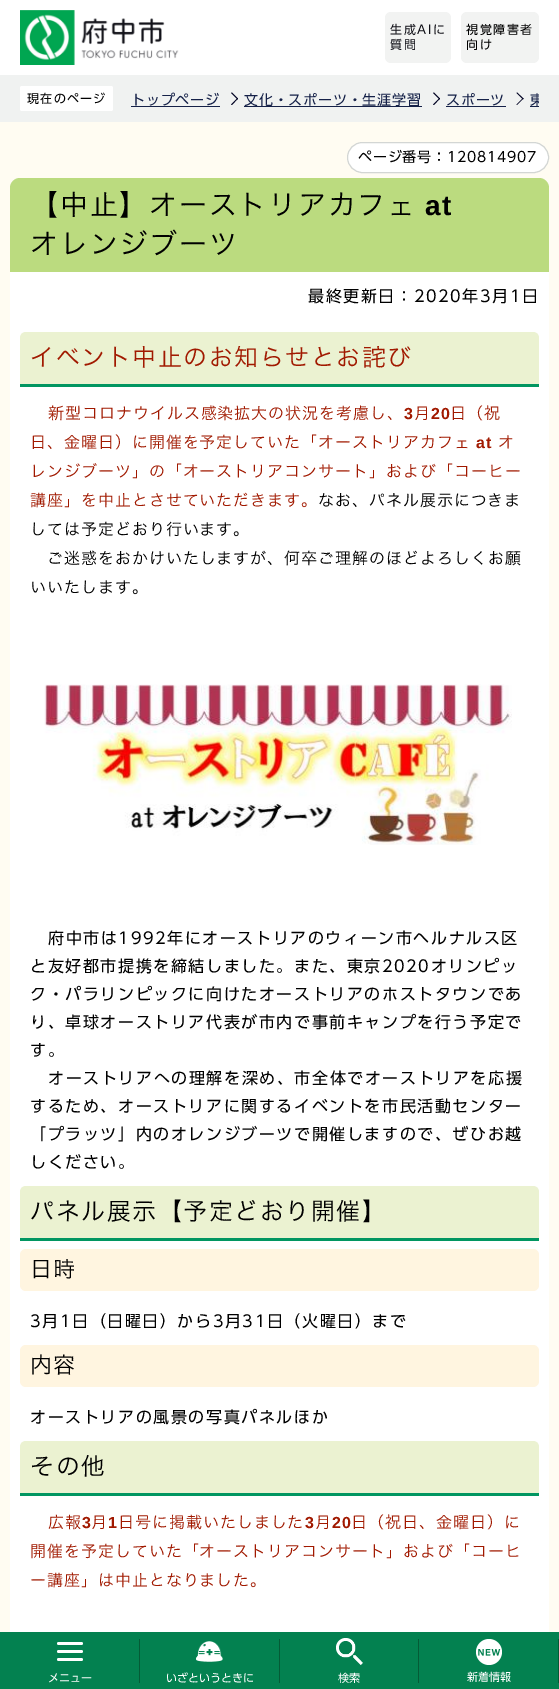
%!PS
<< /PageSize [559 1689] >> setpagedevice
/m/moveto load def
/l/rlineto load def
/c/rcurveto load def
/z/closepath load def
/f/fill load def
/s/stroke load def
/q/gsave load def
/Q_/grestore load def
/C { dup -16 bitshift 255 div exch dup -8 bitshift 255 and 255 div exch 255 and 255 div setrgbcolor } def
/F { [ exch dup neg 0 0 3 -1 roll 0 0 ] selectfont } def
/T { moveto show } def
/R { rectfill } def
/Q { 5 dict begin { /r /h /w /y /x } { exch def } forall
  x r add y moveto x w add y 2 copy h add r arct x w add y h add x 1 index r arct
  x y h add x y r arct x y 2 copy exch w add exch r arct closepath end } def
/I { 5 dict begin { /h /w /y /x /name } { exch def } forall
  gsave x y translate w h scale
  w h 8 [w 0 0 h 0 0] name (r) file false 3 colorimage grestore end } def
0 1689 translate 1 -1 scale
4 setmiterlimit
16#FFFFFF C
0 0 559 1689 R
(1.rgb) 20 10 159 55 I
16#F2F3F2 C
385 12 66 51 6 Q f
/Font-Regular 12 F
16#121219 C
390 34 m 1.6 0 (生成AIに) ashow
390 49 m 1.6 0 (質問) ashow
16#F2F3F2 C
461 12 78 51 6 Q f
16#000000 C
466 34 m 1.6 0 (視覚障害者) ashow
466 49 m 1.6 0 (向け) ashow
16#FFFCF2 C
0 122 559 1510 R
16#FFFFFF C
10 178 539 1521 10 Q f
16#038150 C
0 1632 559 57 R
(2.rgb) 57 1642 26 19 I
16#045B36 C
139 1639 1 44 R
/Font-Regular 11 F
16#FFFFFF C
(メニュー) 48 1682 T
(3.rgb) 196 1641 27 21 I
16#045B36 C
279 1639 1 44 R
16#FFFFFF C
(いざというときに) 166 1682 T
(4.rgb) 336 1638 27 27 I
16#045B36 C
418 1639 1 44 R
16#FFFFFF C
(検索) 338 1682 T
(5.rgb) 476 1639 26 26 I
(新着情報) 467 1681 T
16#045B36 C
558 1639 1 44 R
16#F0F2F1 C
0 75 559 47 R
16#FFFFFF C
20 86 93 25 2 Q f
/Font-Regular 12 F
16#000000 C
27 103 m 1.25 0 (現在のページ) ashow
/Font-Regular 14 F
16#152148 C
131 105 m .8 0 (トップページ) ashow
131 106 89 1 R
16#000222 C
232 92.5 m 6 6 l -.5 1 l -6.5 -6.5 l z f
237.5 98 m .5 .5 l -6 6.5 l -1 -.5 l z f
16#152148 C
244 106 178 1 R
244 105 m .8 0 (文化・スポーツ・生涯学習) ashow
16#000222 C
434 92.5 m 6 6 l -.5 1 l -6.5 -6.5 l z f
439.5 98 m .5 .5 l -6 6.5 l -1 -.5 l z f
16#152148 C
446 105 m .8 0 (スポーツ) ashow
446 106 60 1 R
16#000222 C
517 92.5 m 6.5 6 l -.5 1 l -6.5 -6.5 l z f
523 98 m .5 .5 l -6.5 6.5 l -.5 -.5 l z f
16#152148 C
530 106 9 1 R
q
20 75 519 47 rectclip
530 105 m .8 0 (東) ashow
Q_
16#FFFFFF C
347.5 142.5 201 30 15 Q q f Q_
16#D3D6D4 C
s
16#000000 C
358 162 m .8 0 (ページ番号：120814907) ashow
16#BBDB7F C
20 178 m 519 0 l 5.5 0 10 4.5 10 10 c 0 84 l -539 0 l 0 -84 l 0 -5.5 4.5 -10 10 -10 c z f
/Font-Light 28 F
16#000000 C
30 215 m 1.75 0 (【中止】オーストリアカフェ) ashow
/LiberationSans-Bold 28 F
425 215 m 1.75 0 (at) ashow
/Font-Light 28 F
30 254 m 1.75 0 (オレンジブーツ) ashow
/Font-Regular 16 F
308 302 m 1.6 0 (最終更新日：2020年3月1日) ashow
16#EBF2D1 C
26 332 m 507 0 l 3.5 0 6 2.5 6 6 c 0 49 l -519 0 l 0 -49 l 0 -3.5 2.5 -6 6 -6 c z f
16#019661 C
20 384 519 3 R
/Font-Light 24 F
16#A11900 C
30 366 m 1.5 0 (イベント中止のお知らせとお詫び) ashow
/Font-Light 16 F
48 419 m .95 0 (新型コロナウイルス感染拡大の状況を考慮し、) ashow
/LiberationSans-Bold 16 F
404 419 m .95 0 (3) ashow
/Font-Light 16 F
414 419 m .95 0 (月) ashow
/LiberationSans-Bold 16 F
431 419 m .95 0 (20) ashow
/Font-Light 16 F
450 419 m .95 0 (日（祝) ashow
30 448 m .95 0 (日、金曜日）に開催を予定していた「オーストリアカフェ) ashow
/LiberationSans-Bold 16 F
476 448 m .95 0 (at) ashow
/Font-Light 16 F
498 448 m .95 0 (オ) ashow
30 477 m .95 0 (レンジブーツ」の「オーストリアコンサート」および「コーヒー) ashow
30 506 m .95 0 (講座」を中止とさせていただきます。) ashow
16#000000 C
318 506 m .95 0 (なお、パネル展示につきま) ashow
30 535 m .95 0 (しては予定どおり行います。) ashow
47 564 m .95 0 (ご迷惑をおかけいたしますが、何卒ご理解のほどよろしくお願) ashow
30 593 m .95 0 (いいたします。) ashow
(6.rgb) 44 684 468 161 I
/Font-Regular 16 F
48 944 m 1.6 0 (府中市は1992年にオーストリアのウィーン市ヘルナルス区) ashow
30 972 m 1.6 0 (と友好都市提携を締結しました。また、東京2020オリンピッ) ashow
30 1000 m 1.6 0 (ク・パラリンピックに向けたオーストリアのホストタウンであ) ashow
30 1028 m 1.6 0 (り、卓球オーストリア代表が市内で事前キャンプを行う予定で) ashow
30 1056 m 1.6 0 (す。) ashow
48 1084 m 1.6 0 (オーストリアへの理解を深め、市全体でオーストリアを応援) ashow
30 1112 m 1.6 0 (するため、オーストリアに関するイベントを市民活動センター) ashow
30 1140 m 1.6 0 (「プラッツ」内のオレンジブーツで開催しますので、ぜひお越) ashow
30 1168 m 1.6 0 (しください。) ashow
16#EBF2D1 C
26 1186 m 507 0 l 3.5 0 6 2.5 6 6 c 0 49 l -519 0 l 0 -49 l 0 -3.5 2.5 -6 6 -6 c z f
16#019661 C
20 1238 519 3 R
/Font-Light 24 F
16#000000 C
30 1220 m 1.5 0 (パネル展示【予定どおり開催】) ashow
16#FFF5E0 C
20 1249 519 42 6 Q f
/Font-Light 22 F
16#000000 C
30 1277 m 1 0 (日時) ashow
/Font-Regular 16 F
30 1327 m 1.6 0 (3月1日（日曜日）から3月31日（火曜日）まで) ashow
16#FFF5E0 C
20 1345 519 42 6 Q f
/Font-Light 22 F
16#000000 C
30 1373 m 1 0 (内容) ashow
/Font-Regular 16 F
30 1423 m 1.6 0 (オーストリアの風景の写真パネルほか) ashow
16#EBF2D1 C
26 1441 m 507 0 l 3.5 0 6 2.5 6 6 c 0 49 l -519 0 l 0 -49 l 0 -3.5 2.5 -6 6 -6 c z f
16#019661 C
20 1493 519 3 R
/Font-Light 24 F
16#000000 C
30 1475 m 1.5 0 (その他) ashow
/Font-Light 16 F
16#A11900 C
48 1528 m .95 0 (広報) ashow
/LiberationSans-Bold 16 F
82 1528 m .95 0 (3) ashow
/Font-Light 16 F
91 1528 m .95 0 (月) ashow
/LiberationSans-Bold 16 F
108 1528 m .95 0 (1) ashow
/Font-Light 16 F
118 1528 m .95 0 (日号に掲載いたしました) ashow
/LiberationSans-Bold 16 F
305 1528 m .95 0 (3) ashow
/Font-Light 16 F
315 1528 m .95 0 (月) ashow
/LiberationSans-Bold 16 F
332 1528 m .95 0 (20) ashow
/Font-Light 16 F
351 1528 m .95 0 (日（祝日、金曜日）に) ashow
30 1557 m .95 0 (開催を予定していた「オーストリアコンサート」および「コーヒ) ashow
30 1586 m .95 0 (ー講座」は中止となりました。) ashow
showpage
